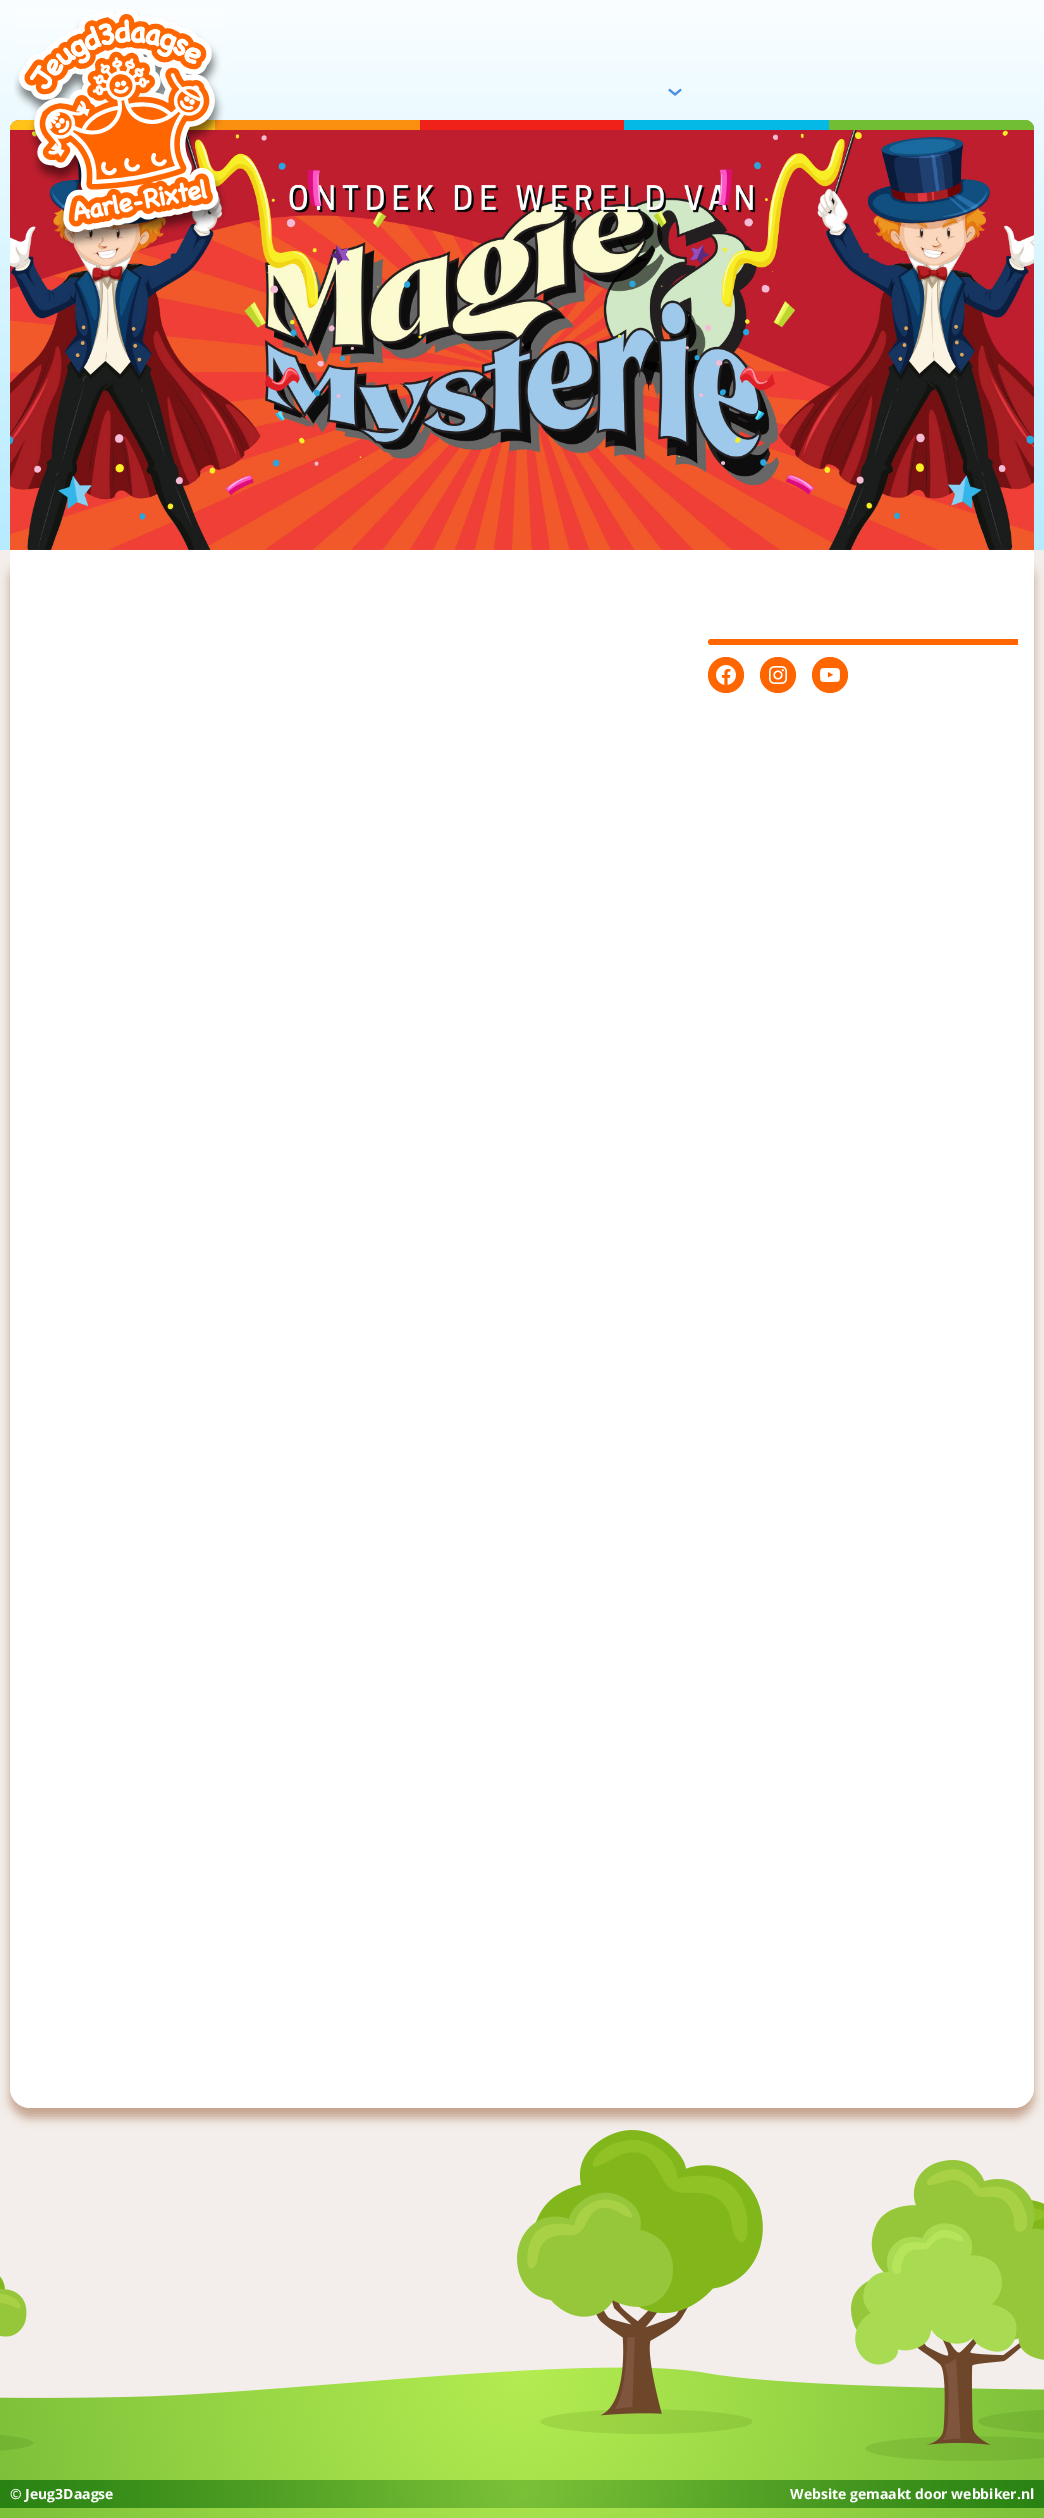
%!PS
<< /PageSize [1044 2518] /PageUsesTransparency true >> setpagedevice
/m/moveto load def
/l/rlineto load def
/c/rcurveto load def
/z/closepath load def
/f/fill load def
/s/stroke load def
/q/gsave load def
/Q_/grestore load def
/w/setlinewidth load def
/C { dup -16 bitshift 255 div exch dup -8 bitshift 255 and 255 div exch 255 and 255 div setrgbcolor } def
/F { [ exch dup neg 0 0 3 -1 roll 0 0 ] selectfont } def
/T { moveto show } def
/R { rectfill } def
/A { dup .setfillconstantalpha .setstrokeconstantalpha } def
/O { newpath 0 360 arc closepath } def
/Q { 5 dict begin { /r /h /w /y /x } { exch def } forall
  x r add y moveto x w add y 2 copy h add r arct x w add y h add x 1 index r arct
  x y h add x y r arct x y 2 copy exch w add exch r arct closepath end } def
/S { 12 dict begin { /a /b /q /h /w /y /x } { exch def } forall gsave /was 0 def
  9 -2 -9 { dup b mul 4 div /e exch def 1 sub .425 mul 2.718 exch exp 1 add a .99 .min exch div /now exch def
    1 1 now sub 1 was sub div sub A /was now def
    w h .min e 2 mul add 0 gt { x e sub y e sub w e 2 mul add h e 2 mul add
      q e add b .6 mul add w h .min 2 div e add .min 0 .max Q fill } if } for grestore end } def
/I { 5 dict begin { /h /w /y /x /name } { exch def } forall
  gsave x y translate w h scale
  w h 8 [w 0 0 h 0 0] name (r) file false 3 colorimage grestore end } def
0 .pushpdf14devicefilter
0 2518 translate 1 -1 scale
4 setmiterlimit
16#F3EEEB C
0 0 1044 2518 R
q 0 0 m 1044 0 l 0 550 l -1044 0 l z clip newpath
<< /ShadingType 2 /ColorSpace /DeviceRGB /Coords [522 0 522 550] /Extend [true true] /Function << /FunctionType 2 /Domain [0 1] /C0 [.984 .996 1] /C1 [.714 .922 1] /N 1 >> >> shfill Q_
(2.rgb) 10 120 1024 430 I
q
18 120 m 1008 0 l 4.5 0 8 3.5 8 8 c 0 2 l -1024 0 l 0 -2 l 0 -4.5 3.5 -8 8 -8 c z clip newpath
16#FFC219 C
19 120 m 196 0 l 0 10 l -205 0 l 0 -1 l 0 -5 4 -9 9 -9 c z f
Q_
16#FA8F10 C
215 120 205 10 R
(1.rgb) 14 9 213 239 I
16#4990E2 C
2 w
669 89.5 m 6 5 l 6 -5 l s
16#EE2219 C
420 120 204 10 R
16#05B9E7 C
624 120 205 10 R
q
18 120 m 1008 0 l 4.5 0 8 3.5 8 8 c 0 2 l -1024 0 l 0 -2 l 0 -4.5 3.5 -8 8 -8 c z clip newpath
16#71BE35 C
829 120 m 196 0 l 5 0 9 4 9 9 c 0 1 l -205 0 l z f
Q_
16#C5A38D C
10 560 1024 1558 20 5 1 S
16#FFFFFF C
10 550 m 1024 0 l 0 1538 l 0 11 -9 20 -20 20 c -984 0 l -11 0 -20 -9 -20 -20 c z f
16#FF6600 C
711 639 m 307 0 l 0 6 l -307 0 l -1.5 0 -3 -1.5 -3 -3 c 0 -1.5 1.5 -3 3 -3 c z f
726 675 18 O f
(3.rgb) 716 665 20 20 I
778 675 18 O f
(4.rgb) 769 666 18 18 I
830 675 18 O f
(5.rgb) 820 668 20 14 I
(6.rgb) 0 2130 1044 388 I
/OpenSans-Bold 14 F
16#FFFFFF C
(© Jeug3Daagse) 10 2499 T
(Website gemaakt door webbiker.nl) 790 2499 T
.poppdf14devicefilter showpage
